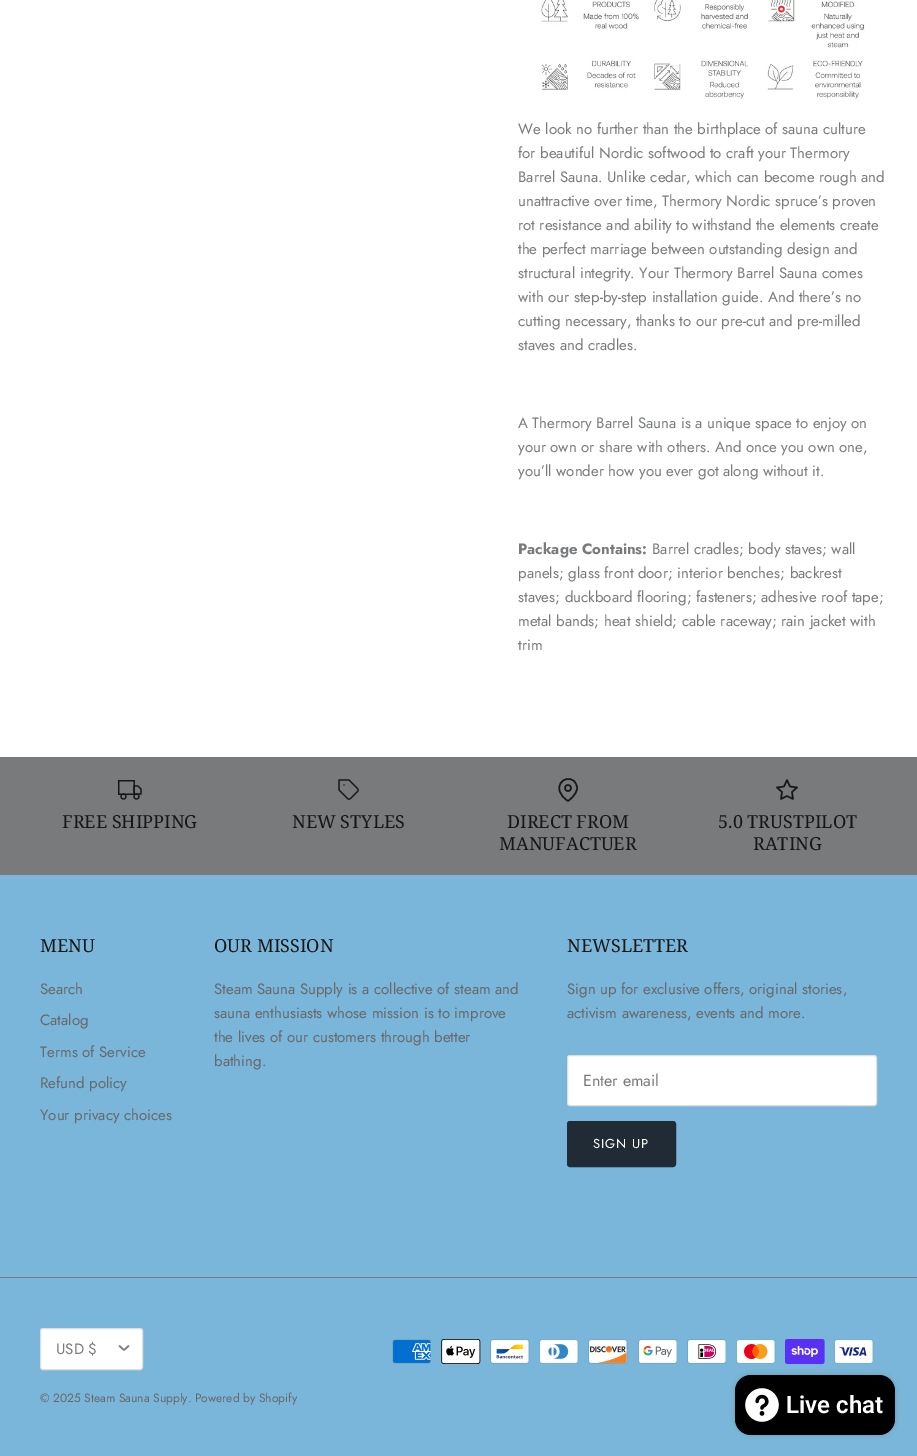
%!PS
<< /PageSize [917 1456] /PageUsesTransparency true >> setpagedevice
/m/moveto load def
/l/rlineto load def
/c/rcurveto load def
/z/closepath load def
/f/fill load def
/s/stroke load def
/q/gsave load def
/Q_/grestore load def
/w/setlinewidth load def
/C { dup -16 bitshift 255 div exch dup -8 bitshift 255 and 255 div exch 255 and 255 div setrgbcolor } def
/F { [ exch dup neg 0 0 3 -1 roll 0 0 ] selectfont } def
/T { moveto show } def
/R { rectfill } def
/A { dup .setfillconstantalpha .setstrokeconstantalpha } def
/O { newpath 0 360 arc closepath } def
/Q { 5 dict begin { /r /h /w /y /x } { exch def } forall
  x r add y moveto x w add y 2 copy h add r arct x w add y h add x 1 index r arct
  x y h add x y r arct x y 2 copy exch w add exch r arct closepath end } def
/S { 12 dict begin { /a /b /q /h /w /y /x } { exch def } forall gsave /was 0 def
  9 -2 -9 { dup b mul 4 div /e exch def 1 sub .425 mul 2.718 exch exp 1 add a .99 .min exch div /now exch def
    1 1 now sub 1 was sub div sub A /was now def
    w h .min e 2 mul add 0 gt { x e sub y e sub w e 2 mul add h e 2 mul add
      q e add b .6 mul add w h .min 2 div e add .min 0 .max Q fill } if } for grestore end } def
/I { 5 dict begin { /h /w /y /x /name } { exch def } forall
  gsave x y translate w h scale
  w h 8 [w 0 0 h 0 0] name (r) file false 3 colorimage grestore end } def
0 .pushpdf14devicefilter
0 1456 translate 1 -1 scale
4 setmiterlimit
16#FFFFFF C
0 0 917 1456 R
(1.rgb) 541 0 324 100 I
/Jost-Regular 15 F
16#787A7C C
(We look no further than the birthplace of sauna culture) 518 134 T
(for beautiful Nordic softwood to craft your Thermory) 518 158 T
(Barrel Sauna. Unlike cedar, which can become rough and) 518 182 T
(unattractive over time, Thermory Nordic spruce’s proven) 518 206 T
(rot resistance and ability to withstand the elements create) 518 230 T
(the perfect marriage between outstanding design and) 518 254 T
(structural integrity. Your Thermory Barrel Sauna comes) 518 278 T
(with our step-by-step installation guide. And there’s no) 518 302 T
(cutting necessary, thanks to our pre-cut and pre-milled) 518 326 T
(staves and cradles.) 518 350 T
(A Thermory Barrel Sauna is a unique space to enjoy on) 518 428 T
(your own or share with others. And once you own one,) 518 452 T
(you’ll wonder how you ever got along without it.) 518 476 T
/Jost-Bold 15 F
(Package Contains:) 518 554 T
/Jost-Regular 15 F
(Barrel cradles; body staves; wall) 652 554 T
(panels; glass front door; interior benches; backrest) 518 578 T
(staves; duckboard flooring; fasteners; adhesive roof tape;) 518 602 T
(metal bands; heat shield; cable raceway; rain jacket with) 518 626 T
(trim) 518 650 T
16#79B6D9 C
0 875 917 581 R
16#787A7C C
0 757 917 118 R
(2.rgb) 118 780 24 20 I
/NotoSerif-Regular 18 F
16#171717 C
(FREE SHIPPING) 62 828 T
(3.rgb) 338 779 21 21 I
(NEW STYLES) 292 828 T
1.5 w
1 setlinecap
1 setlinejoin
577 788 m 0 7 -9 13 -9 13 c -19 -12.5 -3 -28.5 6.5 -19.5 c 1.5 2 2.5 4 2.5 6.5 c z s
0 setlinecap
0 setlinejoin
568 788 3 O s
(DIRECT FROM) 507 828 T
(MANUFACTUER) 499 850 T
1 setlinecap
1 setlinejoin
787 780 m 3 6.5 l 7 1 l -5 4.5 l 1 7 l -6 -3 l -6 3 l 1 -7 l -5 -4.5 l 7 -1 l z s
(5.0 TRUSTPILOT) 718 828 T
(RATING) 753 850 T
(MENU) 40 952 T
/Jost-Regular 15 F
16#676869 C
(Search) 40 994 T
(Catalog) 40 1025 T
(Terms of Service) 40 1057 T
(Refund policy) 40 1088 T
(Your privacy choices) 40 1120 T
/NotoSerif-Regular 18 F
16#171717 C
(OUR MISSION) 214 952 T
/Jost-Regular 15 F
16#676869 C
(Steam Sauna Supply is a collective of steam and) 214 994 T
(sauna enthusiasts whose mission is to improve) 214 1018 T
(the lives of our customers through better) 214 1042 T
(bathing.) 214 1066 T
/NotoSerif-Regular 18 F
16#171717 C
(NEWSLETTER) 567 952 T
/Jost-Regular 15 F
16#676869 C
(Sign up for exclusive offers, original stories,) 567 994 T
(activism awareness, events and more.) 567 1018 T
16#FFFFFF C
567.5 1055.5 309 50 2.5 Q q f Q_
16#DDDEDE C
1 w
0 setlinecap
0 setlinejoin
s
/Jost-Regular 16 F
16#787A7C C
(Enter email) 583 1086 T
16#212B36 C
567.5 1121.5 108 45 2.5 Q q f Q_
s
/Jost-Regular 13 F
16#FFFFFF C
593 1148 m 1 0 (SIGN UP) ashow
16#787A7C C
0 1277 917 1 R
16#FFFFFF C
40.5 1328.5 102 41 2.5 Q q f Q_
16#DDDEDE C
s
/Jost-Regular 15 F
16#787A7C C
(USD $) 56 1354 T
1.5 w
1 setlinecap
1 setlinejoin
119.5 1346 m 4.5 4 l 4.5 -4 l s
/Jost-Regular 12 F
16#676869 C
(© 2025 Steam Sauna Supply. Powered by Shopify) 40 1402 T
(4.rgb) 392 1339 39 25 I
(5.rgb) 441 1339 40 25 I
(6.rgb) 490 1339 40 25 I
(7.rgb) 539 1339 40 25 I
(8.rgb) 588 1339 40 25 I
(9.rgb) 638 1339 39 25 I
(10.rgb) 687 1339 39 25 I
(11.rgb) 736 1339 40 25 I
(12.rgb) 785 1339 40 25 I
(13.rgb) 834 1339 40 25 I
16#000000 C
735 1375 160 60 16 2.5 .15 S
735 1375 160 60 16 Q f
(14.rgb) 745 1388 34 34 I
/Roboto-SemiBold 24 F
16#FFFFFF C
(Live chat) 786 1413 T
.poppdf14devicefilter showpage
